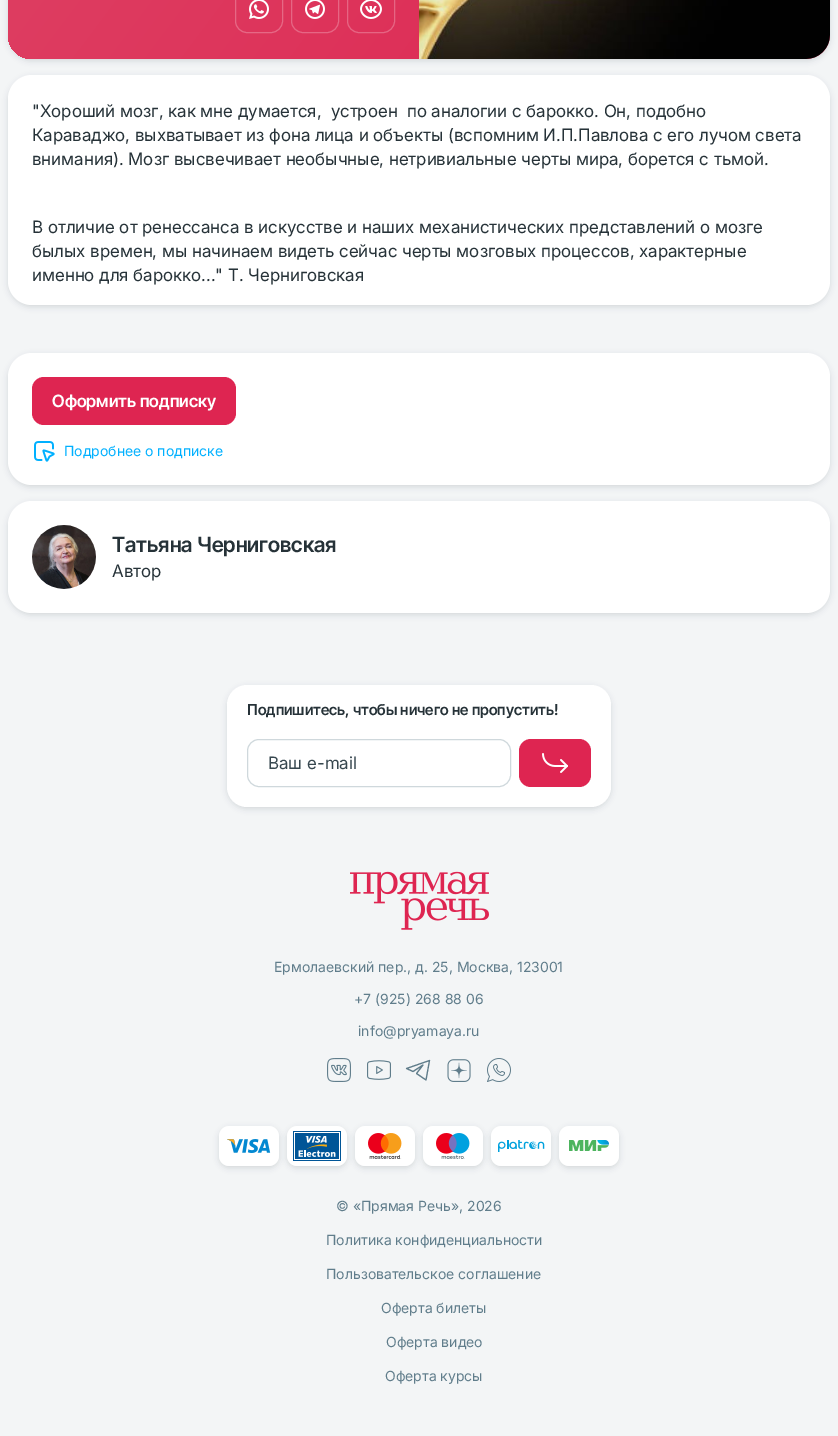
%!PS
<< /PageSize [838 1436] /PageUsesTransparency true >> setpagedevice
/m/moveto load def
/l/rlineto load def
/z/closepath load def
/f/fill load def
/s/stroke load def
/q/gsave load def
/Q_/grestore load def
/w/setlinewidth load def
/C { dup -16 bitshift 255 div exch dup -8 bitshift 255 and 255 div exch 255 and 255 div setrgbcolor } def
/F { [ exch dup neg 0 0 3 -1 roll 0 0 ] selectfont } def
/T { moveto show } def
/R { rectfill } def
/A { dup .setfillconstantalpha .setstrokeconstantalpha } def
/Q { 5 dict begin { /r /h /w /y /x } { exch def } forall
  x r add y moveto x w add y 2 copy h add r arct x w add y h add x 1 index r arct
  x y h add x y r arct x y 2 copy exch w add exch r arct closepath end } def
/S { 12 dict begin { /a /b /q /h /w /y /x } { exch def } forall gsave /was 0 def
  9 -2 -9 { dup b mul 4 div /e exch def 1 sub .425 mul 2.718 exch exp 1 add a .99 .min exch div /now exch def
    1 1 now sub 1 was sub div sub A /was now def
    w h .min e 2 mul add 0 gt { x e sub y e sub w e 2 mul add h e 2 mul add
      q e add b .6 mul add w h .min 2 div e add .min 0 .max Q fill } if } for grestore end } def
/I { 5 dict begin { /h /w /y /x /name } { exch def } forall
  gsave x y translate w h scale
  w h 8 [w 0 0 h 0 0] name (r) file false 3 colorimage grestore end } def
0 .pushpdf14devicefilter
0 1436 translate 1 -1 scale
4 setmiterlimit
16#F3F5F6 C
0 0 838 1436 R
16#263238 C
8 -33 822 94 24 3 .15 S
q 8 -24 822 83 24 Q clip newpath
<< /ShadingType 2 /ColorSpace /DeviceRGB /Coords [30 -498 808 88] /Extend [true true] /Function << /FunctionType 2 /Domain [0 1] /C0 [.863 .275 .404] /C1 [.871 .145 .318] /N 1 >> >> shfill Q_
16#E66885 C
235.5 -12.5 47 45 11.5 Q s
(1.rgb) 249 0 20 19 I
16#E66684 C
291.5 -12.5 47 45 11.5 Q s
(2.rgb) 305 0 20 19 I
16#E66583 C
347.5 -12.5 47 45 11.5 Q s
(3.rgb) 360 0 22 19 I
(4.rgb) 419 0 411 59 I
16#263238 C
8 77 822 230 24 3 .15 S
16#FFFFFF C
8 75 822 230 24 Q f
/Inter-Regular 17 F
16#263238 C
("Хороший мозг, как мне думается,  устроен  по аналогии с барокко. Он, подобно) 32 117 T
(Караваджо, выхватывает из фона лица и объекты \(вспомним И.П.Павлова с его лучом света) 32 141 T
(внимания\). Мозг высвечивает необычные, нетривиальные черты мира, борется с тьмой.) 32 165 T
(В отличие от ренессанса в искусстве и наших механистических представлений о мозге) 32 233 T
(былых времен, мы начинаем видеть сейчас черты мозговых процессов, характерные) 32 257 T
(именно для барокко..." Т. Черниговская) 32 281 T
8 355 822 132 24 3 .15 S
16#FFFFFF C
8 353 822 132 24 Q f
16#DE2551 C
32 377 204 48 12 Q f
/InterTight-SemiBold 17 F
16#FFFFFF C
(Оформить подписку) 52 407 T
(5.rgb) 34 441 21 21 I
/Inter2-Regular 14 F
16#00B0FF C
(Подробнее о подписке) 64 456 T
16#263238 C
8 503 822 112 24 3 .15 S
16#FFFFFF C
8 501 822 112 24 Q f
(6.rgb) 32 525 64 64 I
/InterTight-SemiBold 21 F
16#263238 C
(Татьяна Черниговская) 112 552 T
/Inter-Regular 17 F
(Автор) 112 577 T
227 687 384 122 20 3 .15 S
16#FFFFFF C
227 685 384 122 20 Q f
/InterTight-SemiBold 15 F
16#263238 C
(Подпишитесь, чтобы ничего не пропустить!) 247 715 T
16#CFD8DC C
247.5 739.5 263 47 11.5 Q s
/Inter-Regular 17 F
16#37474F C
(Ваш e-mail) 268 769 T
16#DE2551 C
519 739 72 48 12 Q f
(7.rgb) 542 753 26 20 I
(8.rgb) 350 871 139 59 I
/Inter2-Regular 14 F
16#607D8B C
(Ермолаевский пер., д. 25, Москва, 123001) 274 972 T
(+7 \(925\) 268 88 06) 354 1004 T
(info@pryamaya.ru) 358 1036 T
(9.rgb) 327 1058 24 24 I
(10.rgb) 367 1060 24 20 I
1.1 w
1 setlinejoin
429.5 1060.5 m -23 8 l 6.5 3 l 10 -6.5 l -6.5 8.5 l 9.5 6.5 l z s
(11.rgb) 447 1059 24 23 I
(12.rgb) 487 1058 24 24 I
16#263238 C
219 1128 60 40 10 3 .15 S
(13.rgb) 219 1126 60 40 I
287 1128 60 40 10 3 .15 S
(14.rgb) 287 1126 60 40 I
355 1128 60 40 10 3 .15 S
(15.rgb) 355 1126 60 40 I
423 1128 60 40 10 3 .15 S
(16.rgb) 423 1126 60 40 I
491 1128 60 40 10 3 .15 S
(17.rgb) 491 1126 60 40 I
559 1128 60 40 10 3 .15 S
(18.rgb) 559 1126 60 40 I
16#607D8B C
(© «Прямая Речь», 2026) 336 1211 T
(Политика конфиденциальности) 326 1245 T
(Пользовательское соглашение) 326 1279 T
(Оферта билеты) 381 1313 T
(Оферта видео) 386 1347 T
(Оферта курсы) 385 1381 T
.poppdf14devicefilter showpage
